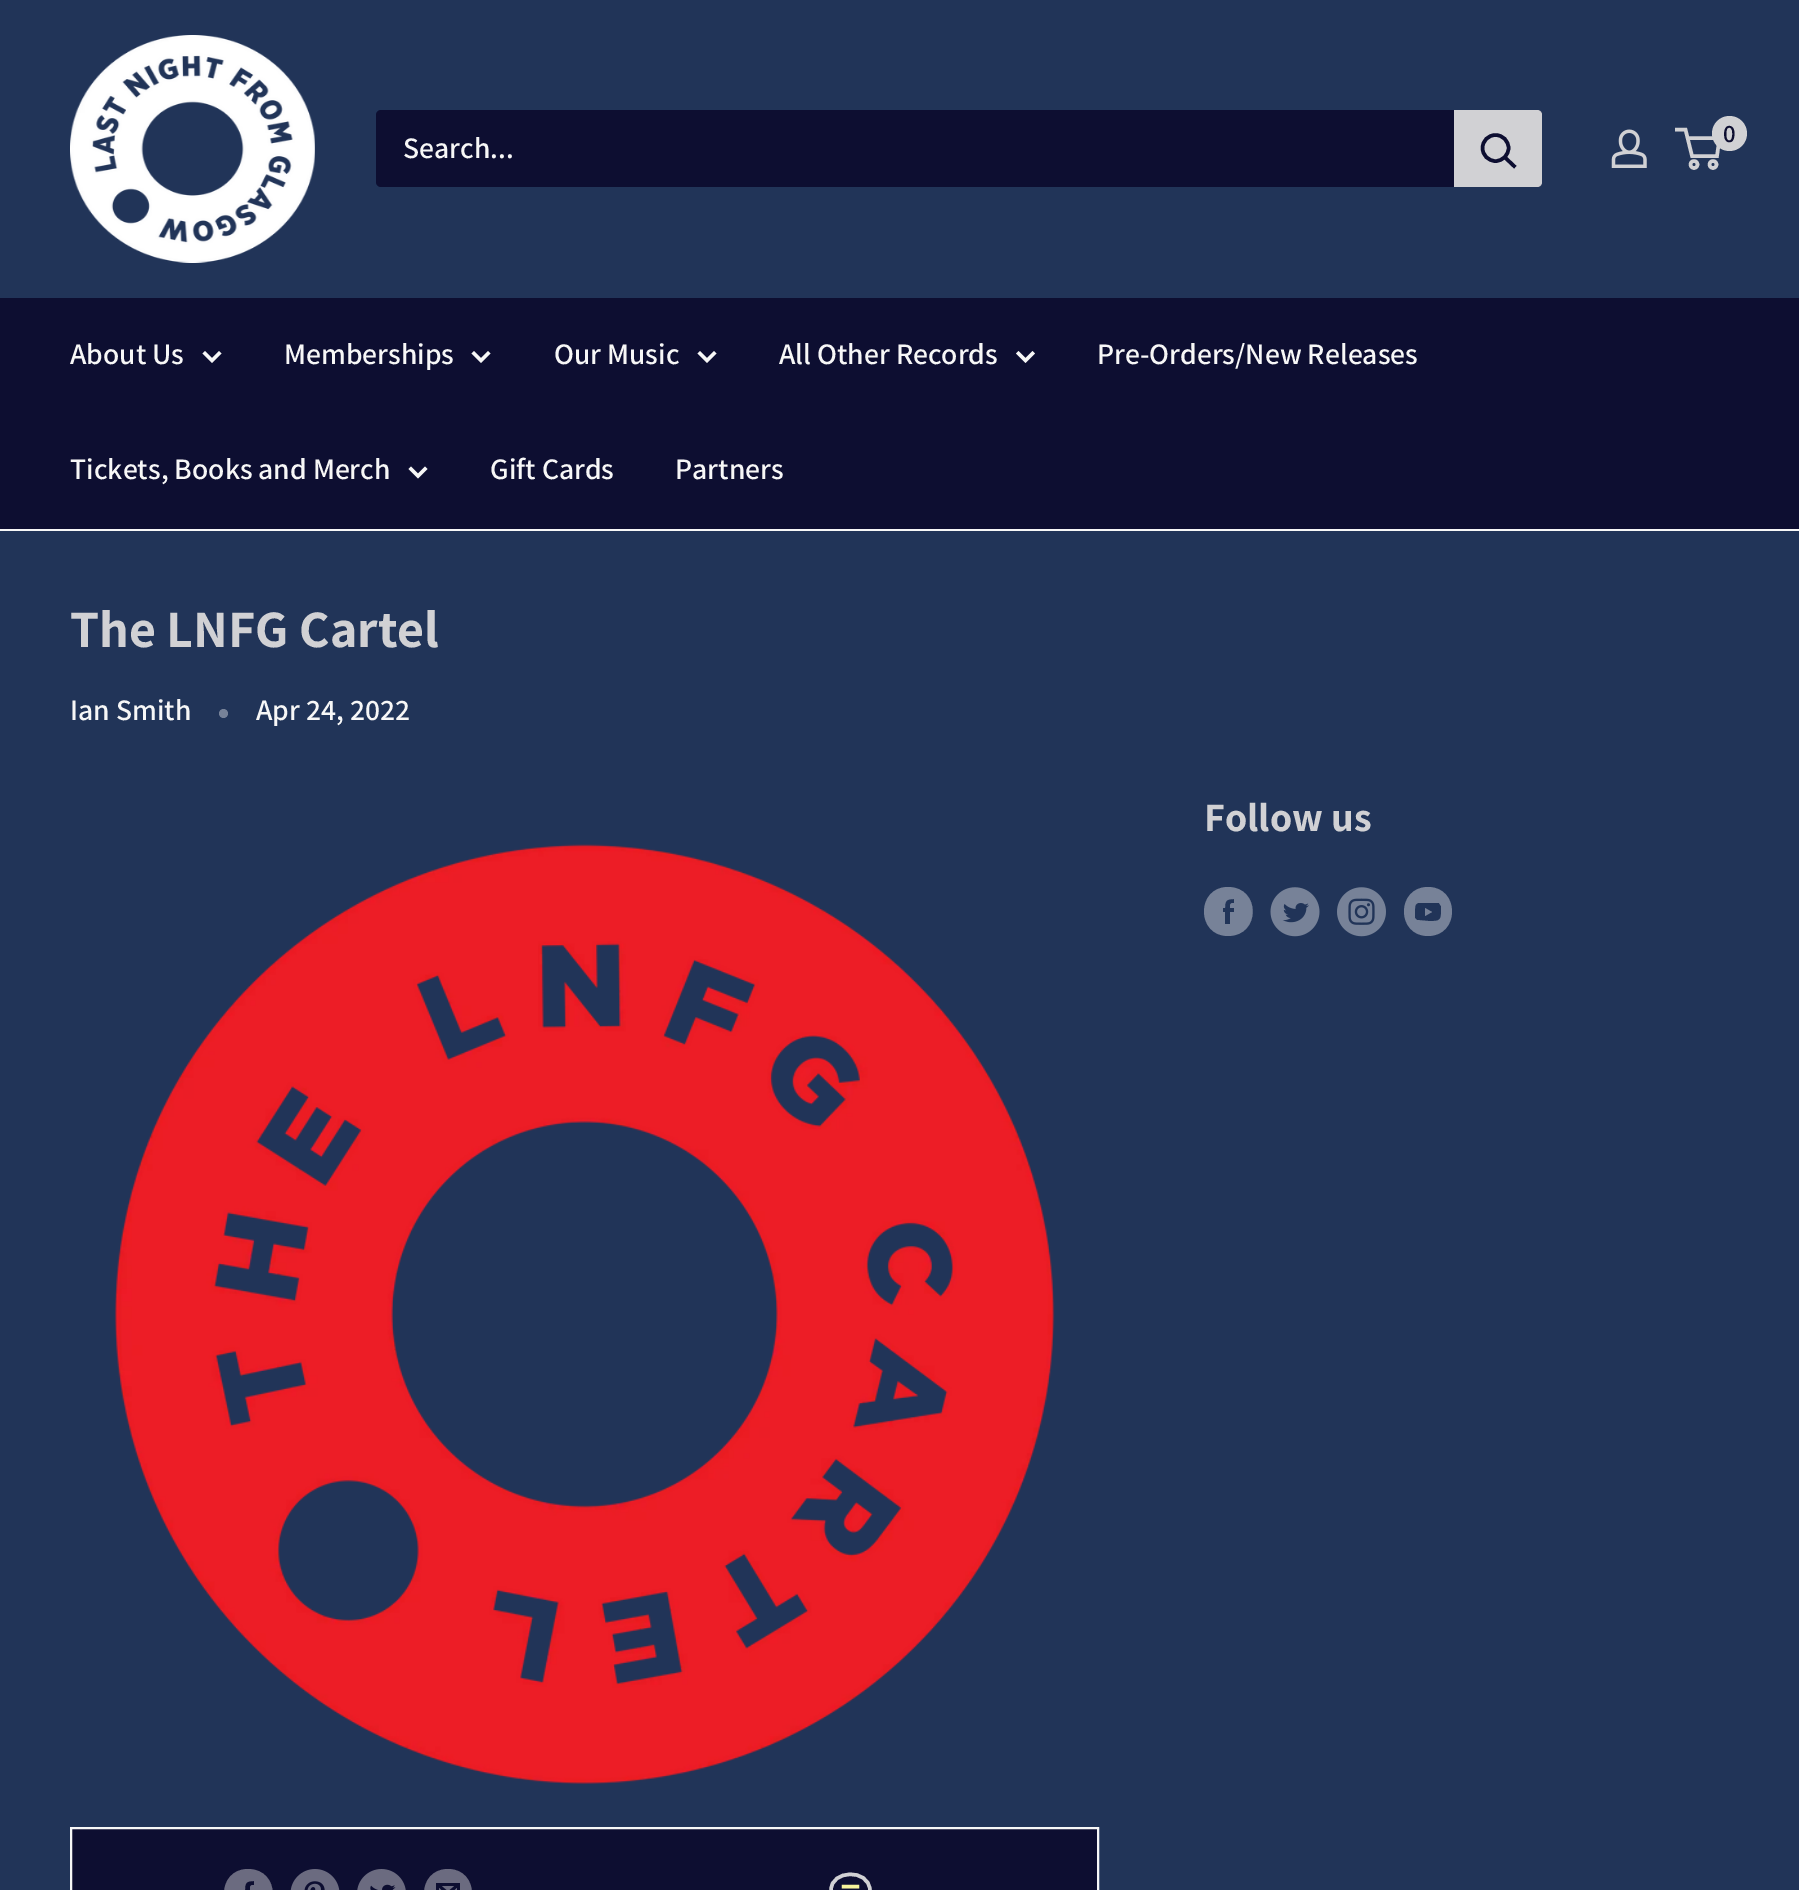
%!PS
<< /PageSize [1799 1890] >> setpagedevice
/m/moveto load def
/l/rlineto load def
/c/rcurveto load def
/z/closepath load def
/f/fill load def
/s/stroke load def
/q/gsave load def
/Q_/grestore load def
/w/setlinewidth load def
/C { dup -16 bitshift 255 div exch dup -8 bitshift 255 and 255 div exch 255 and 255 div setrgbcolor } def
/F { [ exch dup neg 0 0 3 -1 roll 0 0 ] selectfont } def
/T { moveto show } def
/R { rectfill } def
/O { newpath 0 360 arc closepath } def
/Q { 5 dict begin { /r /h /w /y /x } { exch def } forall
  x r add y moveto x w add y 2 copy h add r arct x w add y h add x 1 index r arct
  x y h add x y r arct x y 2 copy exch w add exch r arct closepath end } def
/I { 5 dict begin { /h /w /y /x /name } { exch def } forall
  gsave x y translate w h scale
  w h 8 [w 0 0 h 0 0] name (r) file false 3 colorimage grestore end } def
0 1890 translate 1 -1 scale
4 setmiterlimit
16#213458 C
0 0 1799 1890 R
(1.rgb) 70 35 245 228 I
(2.rgb) 1611 129 36 39 I
16#D1D1D4 C
3.5 w
1694 164.5 3.5 O s
1713 164.5 3.5 O s
1687.5 138 m 32 0 l -2.5 18 l -25 0 l -6.5 -26.5 l -10.5 0 l s
1729.5 133.5 17.5 O f
/Assistant-SemiBold 25 F
16#0D0E31 C
(0) 1723 142 T
376 110 1166 77 5 Q f
/Assistant-SemiBold 29.75 F
16#F7F7F7 C
(Search...) 403 158 T
16#D1D1D4 C
1454 110 m 83 0 l 3 0 5 2 5 5 c 0 67 l 0 3 -2 5 -5 5 c -83 0 l z f
16#0D0E31 C
2 setlinecap
1514 166 m -9 -8.5 l s
0 setlinecap
1495.5 148 13 O s
0 298 1799 231 R
16#F7F7F7 C
0 529 1799 2 R
(About Us) 70 364 T
2 setlinecap
219 353.5 m -7 7 l -7 -7 l s
(Memberships) 284 364 T
488 353.5 m -7 7 l -7 -7 l s
(Our Music) 554 364 T
714 353.5 m -7 7 l -7 -7 l s
(All Other Records) 779 364 T
1032.5 353.5 m -7 7 l -7 -7 l s
(Pre-Orders/New Releases) 1097 364 T
(Tickets, Books and Merch) 70 479 T
425 469 m -7 7 l -7 -7 l s
(Gift Cards) 490 479 T
(Partners) 675 479 T
/Assistant-Bold 52.5 F
16#D1D1D4 C
(The LNFG Cartel) 70 647 T
/Assistant-SemiBold 29.75 F
16#F7F7F7 C
(Ian Smith) 70 720 T
16#778298 C
223.5 713.5 4.5 O f
16#F7F7F7 C
(Apr 24, 2022) 256 720 T
/Assistant-Bold 40.25 F
16#D1D1D4 C
(Follow us) 1204 831 T
16#778298 C
1228 936 m -32 0 -32 -49 0 -49 c 33 0 33 49 0 49 c z 1234 908 m -4 0 l 0 -4 0 -5 4 -5 c 0 -4 l -8 0 -9 2 -9 9 c -2 0 l 0 4 l 2 0 l 0 12 l 5 0 l 0 -12 l 4 0 l z eofill
(3.rgb) 1270 887 50 50 I
(4.rgb) 1337 887 49 50 I
1428 936 m 32 0 32 -49 0 -49 c -32 0 -32 49 0 49 c z 1441 906 m 0 8 l 0 8 -5 7 -13 7 c -11 -1 l -2 -2 l 0 -9 l 0 -8 4 -6 12 -6 c 12 0 l z 1425 916 m 7 -4 l -7 -4 l z eofill
(5.rgb) 114 844 941 940 I
16#0D0E31 C
71 1828 m 1027 0 l 0 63 l -1027 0 l z q f Q_
16#F7F7F7 C
2 w
0 setlinecap
s
16#6B6B80 C
248 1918 m -32 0 -32 -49 0 -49 c 33 0 33 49 0 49 c z 254 1890 m -4 0 l 0 -4 0 -5 4 -5 c 0 -4 l -8 0 -9 2 -9 9 c -2 0 l 0 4 l 2 -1 l 0 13 l 5 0 l 0 -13 l 4 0 l z eofill
(6.rgb) 290 1869 50 21 I
(7.rgb) 357 1869 49 21 I
448 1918 m -32 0 -32 -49 0 -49 c 32 0 32 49 0 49 c z 442 1886 m 12 0 l -6 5 l z 457 1888 m 0 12 l -18 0 l 0 -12 l 9 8 l z 460 1883 m -24 0 l 0 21 l 24 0 l z f
16#D1D1D4 C
3.5 w
2 setlinecap
865 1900 m 3 -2.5 5 -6 5 -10 c -1.5 -22 -39 -20 -39 0 c 0 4.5 2.5 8.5 6 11 c 5 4.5 12.5 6 19 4 c 10 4 l z s
16#F6F39B C
843.5 1886.5 m 14 0 l 843.5 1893.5 m 8.5 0 l s
showpage
